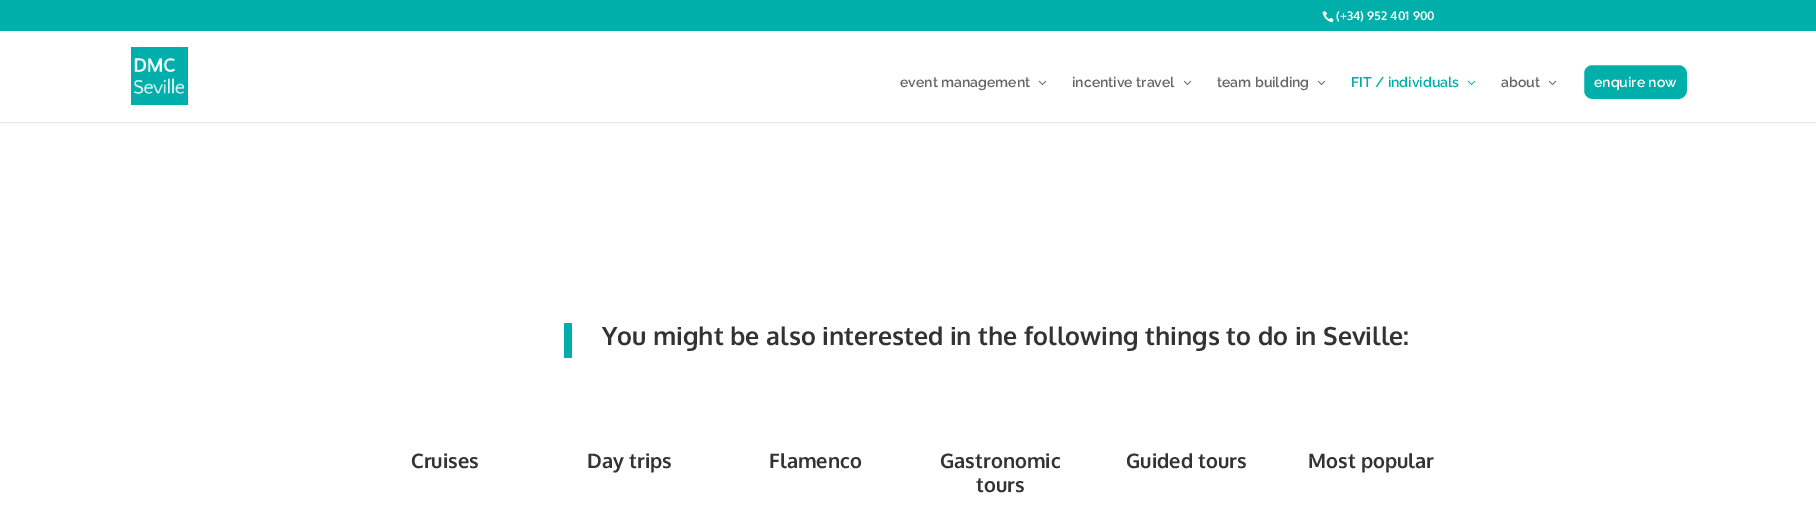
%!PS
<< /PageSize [1816 530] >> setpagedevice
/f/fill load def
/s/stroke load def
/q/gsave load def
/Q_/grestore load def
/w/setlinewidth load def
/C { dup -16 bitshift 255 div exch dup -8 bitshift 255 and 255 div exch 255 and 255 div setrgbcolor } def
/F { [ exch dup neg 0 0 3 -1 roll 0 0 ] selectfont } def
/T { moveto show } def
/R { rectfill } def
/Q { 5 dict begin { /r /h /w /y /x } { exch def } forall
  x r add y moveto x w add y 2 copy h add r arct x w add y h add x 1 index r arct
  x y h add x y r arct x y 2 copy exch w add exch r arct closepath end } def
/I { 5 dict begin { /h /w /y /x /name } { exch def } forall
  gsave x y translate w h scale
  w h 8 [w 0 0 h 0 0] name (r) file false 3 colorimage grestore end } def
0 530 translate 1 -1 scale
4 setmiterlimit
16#FFFFFF C
0 0 1816 530 R
16#00AFAA C
0 0 1816 31 R
(1.rgb) 1322 11 12 12 I
/Oxygen-Bold 12 F
16#FFFFFF C
(\(+34\) 952 401 900) 1336 20 T
16#E6E6E6 C
0 122 1816 1 R
(2.rgb) 131 47 57 58 I
/Raleway-SemiBold 14 F
16#666666 C
(event management) 900 87 T
(3.rgb) 1038 80 9 5 I
(incentive travel) 1072 87 T
(3.rgb) 1183 80 9 5 I
(team building) 1217 87 T
(3.rgb) 1317 80 9 5 I
16#00AFAA C
(FIT / individuals) 1351 87 T
(4.rgb) 1467 80 9 5 I
16#666666 C
(about) 1501 87 T
(3.rgb) 1548 80 9 5 I
16#00AFAA C
1583 64 105 36 9 Q q f Q_
16#FFFFFF C
2 w
s
(enquire now) 1594 87 T
16#00AFAA C
564 323 8 35 R
/Oxygen-Bold 25 F
16#333333 C
(You might be also interested in the following things to do in Seville:) 602 345 T
/Oxygen-Bold 20 F
(Cruises) 411 468 T
(Day trips) 587 468 T
(Flamenco) 769 468 T
(Gastronomic) 940 468 T
(tours) 976 492 T
(Guided tours) 1126 468 T
(Most popular) 1308 468 T
showpage
